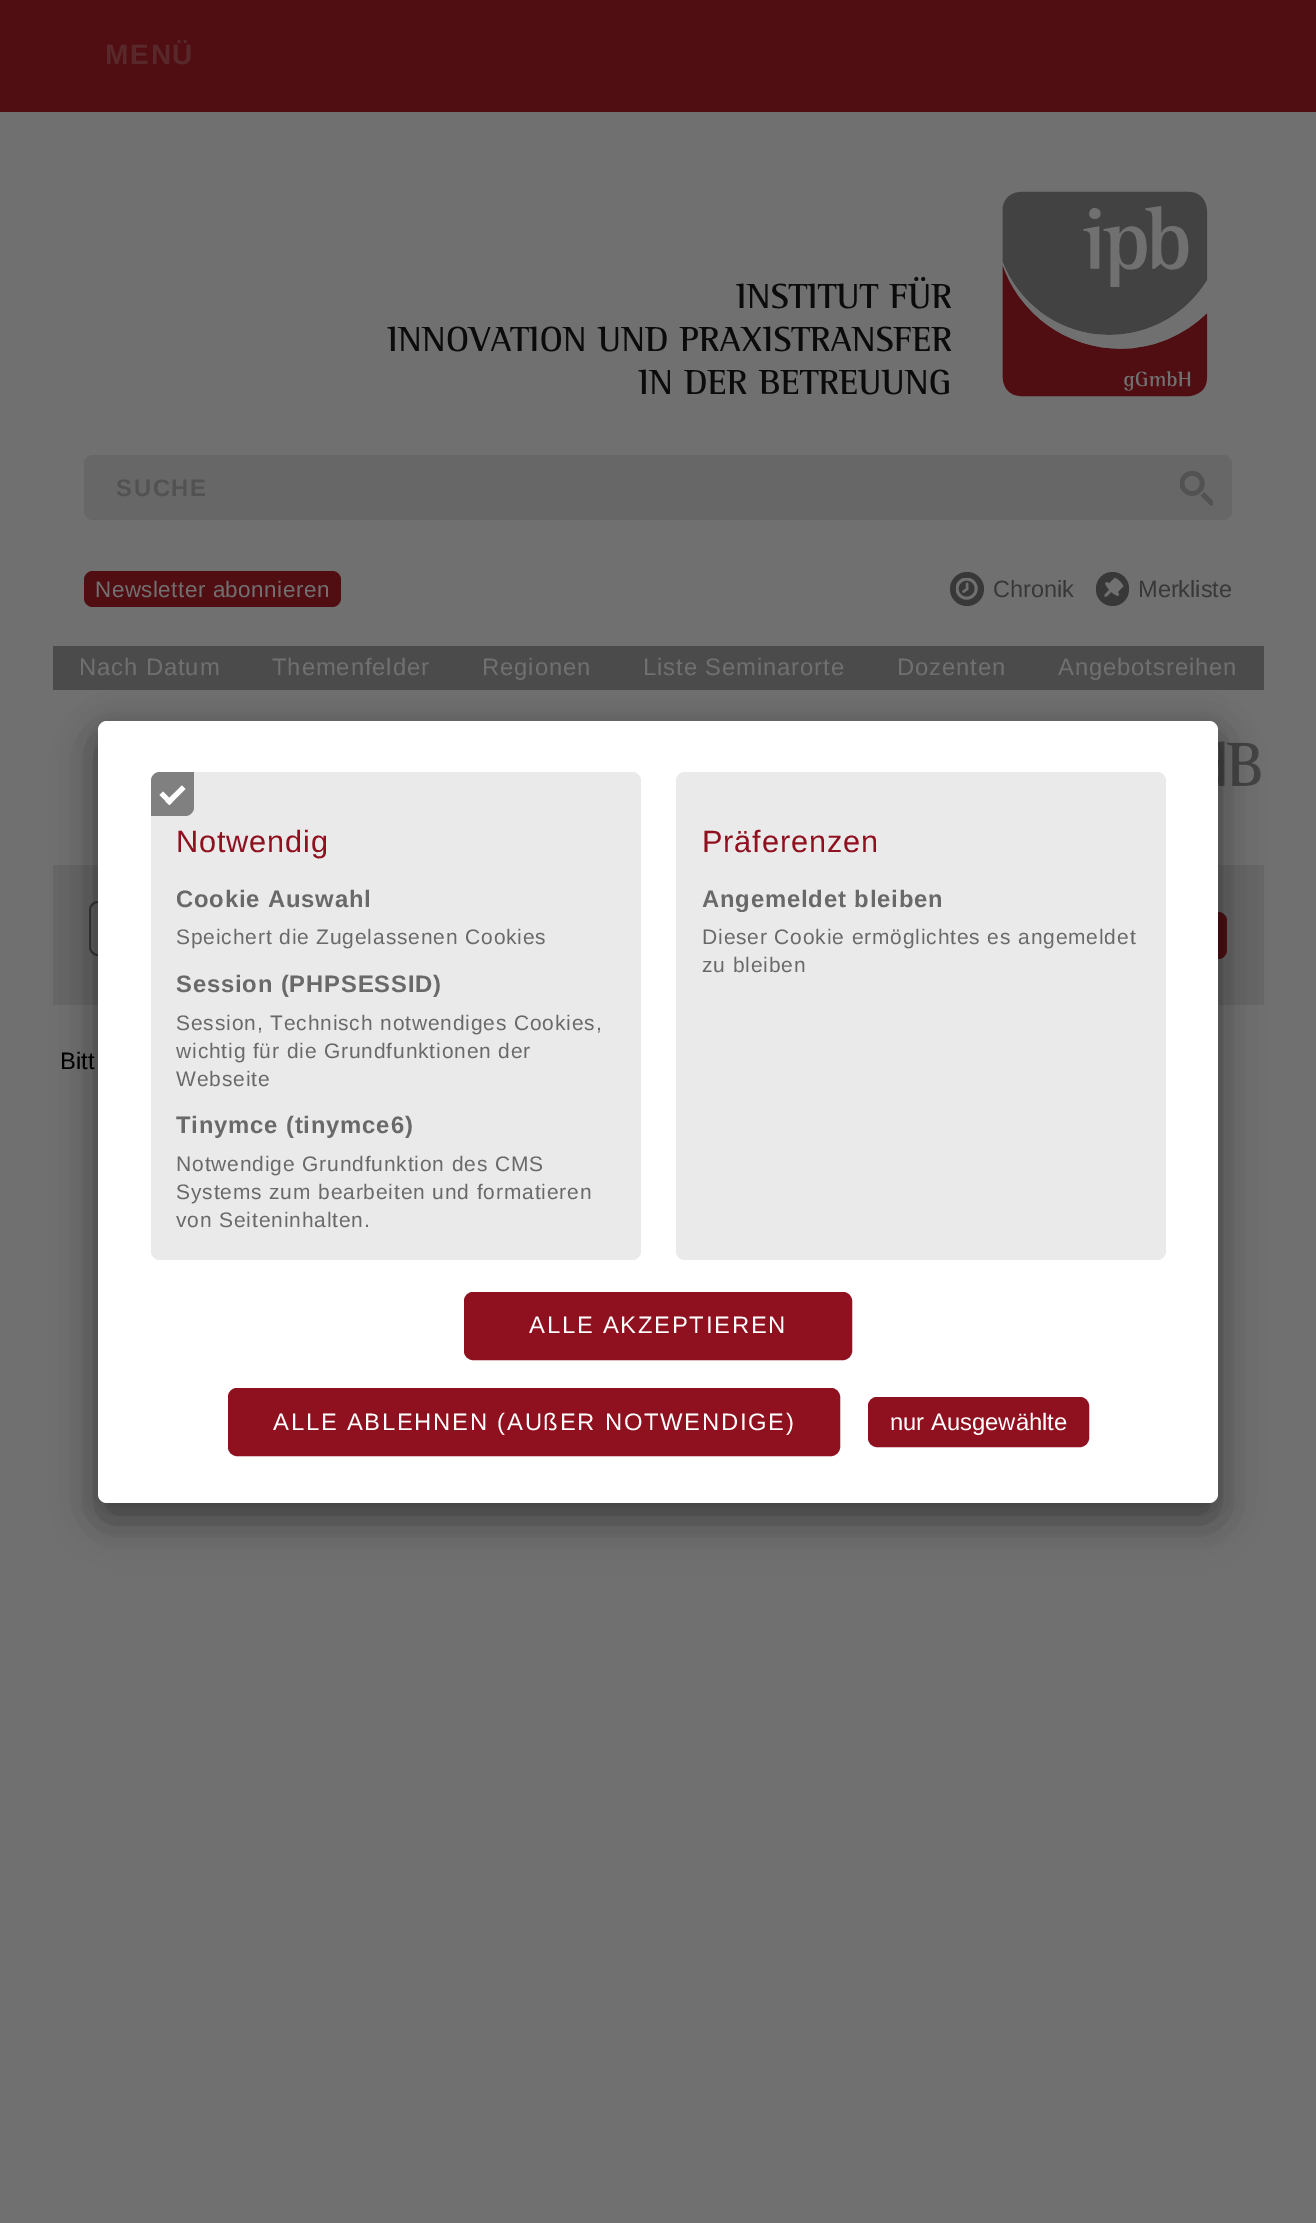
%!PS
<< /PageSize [1316 2223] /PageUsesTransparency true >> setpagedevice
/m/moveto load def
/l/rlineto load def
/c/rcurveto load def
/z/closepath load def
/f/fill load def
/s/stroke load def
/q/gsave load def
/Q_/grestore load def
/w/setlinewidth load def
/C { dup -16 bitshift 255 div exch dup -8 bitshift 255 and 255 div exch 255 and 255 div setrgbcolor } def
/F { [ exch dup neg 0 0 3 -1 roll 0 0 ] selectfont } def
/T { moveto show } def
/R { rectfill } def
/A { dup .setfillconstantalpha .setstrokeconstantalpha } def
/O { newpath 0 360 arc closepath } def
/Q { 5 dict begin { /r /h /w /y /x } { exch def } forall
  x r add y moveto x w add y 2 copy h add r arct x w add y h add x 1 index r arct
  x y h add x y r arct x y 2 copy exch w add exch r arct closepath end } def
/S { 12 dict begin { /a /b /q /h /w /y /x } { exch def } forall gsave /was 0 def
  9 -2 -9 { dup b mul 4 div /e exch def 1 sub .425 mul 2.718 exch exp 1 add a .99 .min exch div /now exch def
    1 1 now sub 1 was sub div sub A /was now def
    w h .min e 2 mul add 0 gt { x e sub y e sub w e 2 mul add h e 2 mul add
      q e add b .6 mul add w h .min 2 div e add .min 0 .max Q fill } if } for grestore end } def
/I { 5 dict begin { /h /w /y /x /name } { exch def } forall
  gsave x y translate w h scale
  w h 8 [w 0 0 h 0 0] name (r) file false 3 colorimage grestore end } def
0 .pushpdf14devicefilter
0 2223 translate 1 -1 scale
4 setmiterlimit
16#707070 C
0 0 1316 2223 R
16#500E12 C
0 0 1316 112 R
/LiberationSans-Bold 28 F
16#58282B C
105 64 m 1.75 0 (MENÜ) ashow
(1.rgb) 387 191 821 206 I
16#676767 C
84 455 1148 65 9 Q f
/LiberationSans-Bold 23.8 F
16#525252 C
116 496 m 1.75 0 (SUCHE) ashow
(2.rgb) 1180 471 33 35 I
16#500E12 C
84 571 257 36 9 Q f
/LiberationSans-Regular 22.4 F
16#707070 C
95 597 m .5 0 (Newsletter abonnieren) ashow
16#383838 C
967 589 17 O f
(3.rgb) 956 578 22 22 I
/LiberationSans-Regular 23.5 F
(Chronik) 993 597 T
1096 572 33 34 16.5 Q f
(4.rgb) 1104 577 20 20 I
(Merkliste) 1138 597 T
16#4B4B4B C
53 646 1211 44 R
/LiberationSans-Regular 23.8 F
16#707070 C
79 675 m .9 0 (Nach Datum) ashow
272 675 m .9 0 (Themenfelder) ashow
482 675 m .9 0 (Regionen) ashow
643 675 m .9 0 (Liste Seminarorte) ashow
897 675 m .9 0 (Dozenten) ashow
1058 675 m .9 0 (Angebotsreihen) ashow
(5.rgb) 1218 741 43 45 I
16#676767 C
53 865 1211 140 R
16#383838 C
2 w
90 902 551 53 8 Q s
16#500E12 C
642 912 585 47 9 Q f
16#000000 C
(Bitt) 60 1069 T
98 739 1120 782 9 22 .3 S
98 730 1120 782 9 17.5 .22 S
16#FFFFFF C
98 721 1120 782 9 Q f
16#EAEAEA C
151 772 490 488 9 Q f
16#808080 C
160 772 m 34 0 l 0 35 l 0 5 -4 9 -9 9 c -34 0 l 0 -35 l 0 -5 4 -9 9 -9 c z f
16#FFFFFF C
182 785.5 m 3.5 3.5 l -16 16 l -4 -3.5 l z f
163 791.5 m 10 10 l -3.5 3.5 l -10 -10 l z f
/LiberationSans-Regular 30.75 F
16#8F101E C
176 852 m .85 0 (Notwendig) ashow
/LiberationSans-Bold 23.8 F
16#696969 C
176 907 m .85 0 (Cookie Auswahl) ashow
/LiberationSans-Regular 21 F
176 944 m .85 0 (Speichert die Zugelassenen Cookies) ashow
/LiberationSans-Bold 23.8 F
176 992 m .85 0 (Session \(PHPSESSID\)) ashow
/LiberationSans-Regular 21 F
176 1030 m .85 0 (Session, Technisch notwendiges Cookies,) ashow
176 1058 m .85 0 (wichtig für die Grundfunktionen der) ashow
176 1086 m .85 0 (Webseite) ashow
/LiberationSans-Bold 23.8 F
176 1133 m .85 0 (Tinymce \(tinymce6\)) ashow
/LiberationSans-Regular 21 F
176 1171 m .85 0 (Notwendige Grundfunktion des CMS) ashow
176 1199 m .85 0 (Systems zum bearbeiten und formatieren) ashow
176 1227 m .85 0 (von Seiteninhalten.) ashow
16#EAEAEA C
676 772 490 488 9 Q f
/LiberationSans-Regular 30.75 F
16#8F101E C
702 852 m .85 0 (Präferenzen) ashow
/LiberationSans-Bold 23.8 F
16#696969 C
702 907 m .85 0 (Angemeldet bleiben) ashow
/LiberationSans-Regular 21 F
702 944 m .85 0 (Dieser Cookie ermöglichtes es angemeldet) ashow
702 972 m .85 0 (zu bleiben) ashow
16#8F101E C
466 1294 384 64 7 Q q f Q_
4 w
s
/LiberationSans-Regular 23.8 F
16#FFFFFF C
529 1333 m 1.75 0 (ALLE AKZEPTIEREN) ashow
16#8F101E C
230 1390 608 64 7 Q q f Q_
s
16#FFFFFF C
273 1430 m 1.75 0 (ALLE ABLEHNEN \(AUßER NOTWENDIGE\)) ashow
16#8F101E C
870 1399 217 46 7 Q q f Q_
s
16#FFFFFF C
(nur Ausgewählte) 890 1430 T
.poppdf14devicefilter showpage
